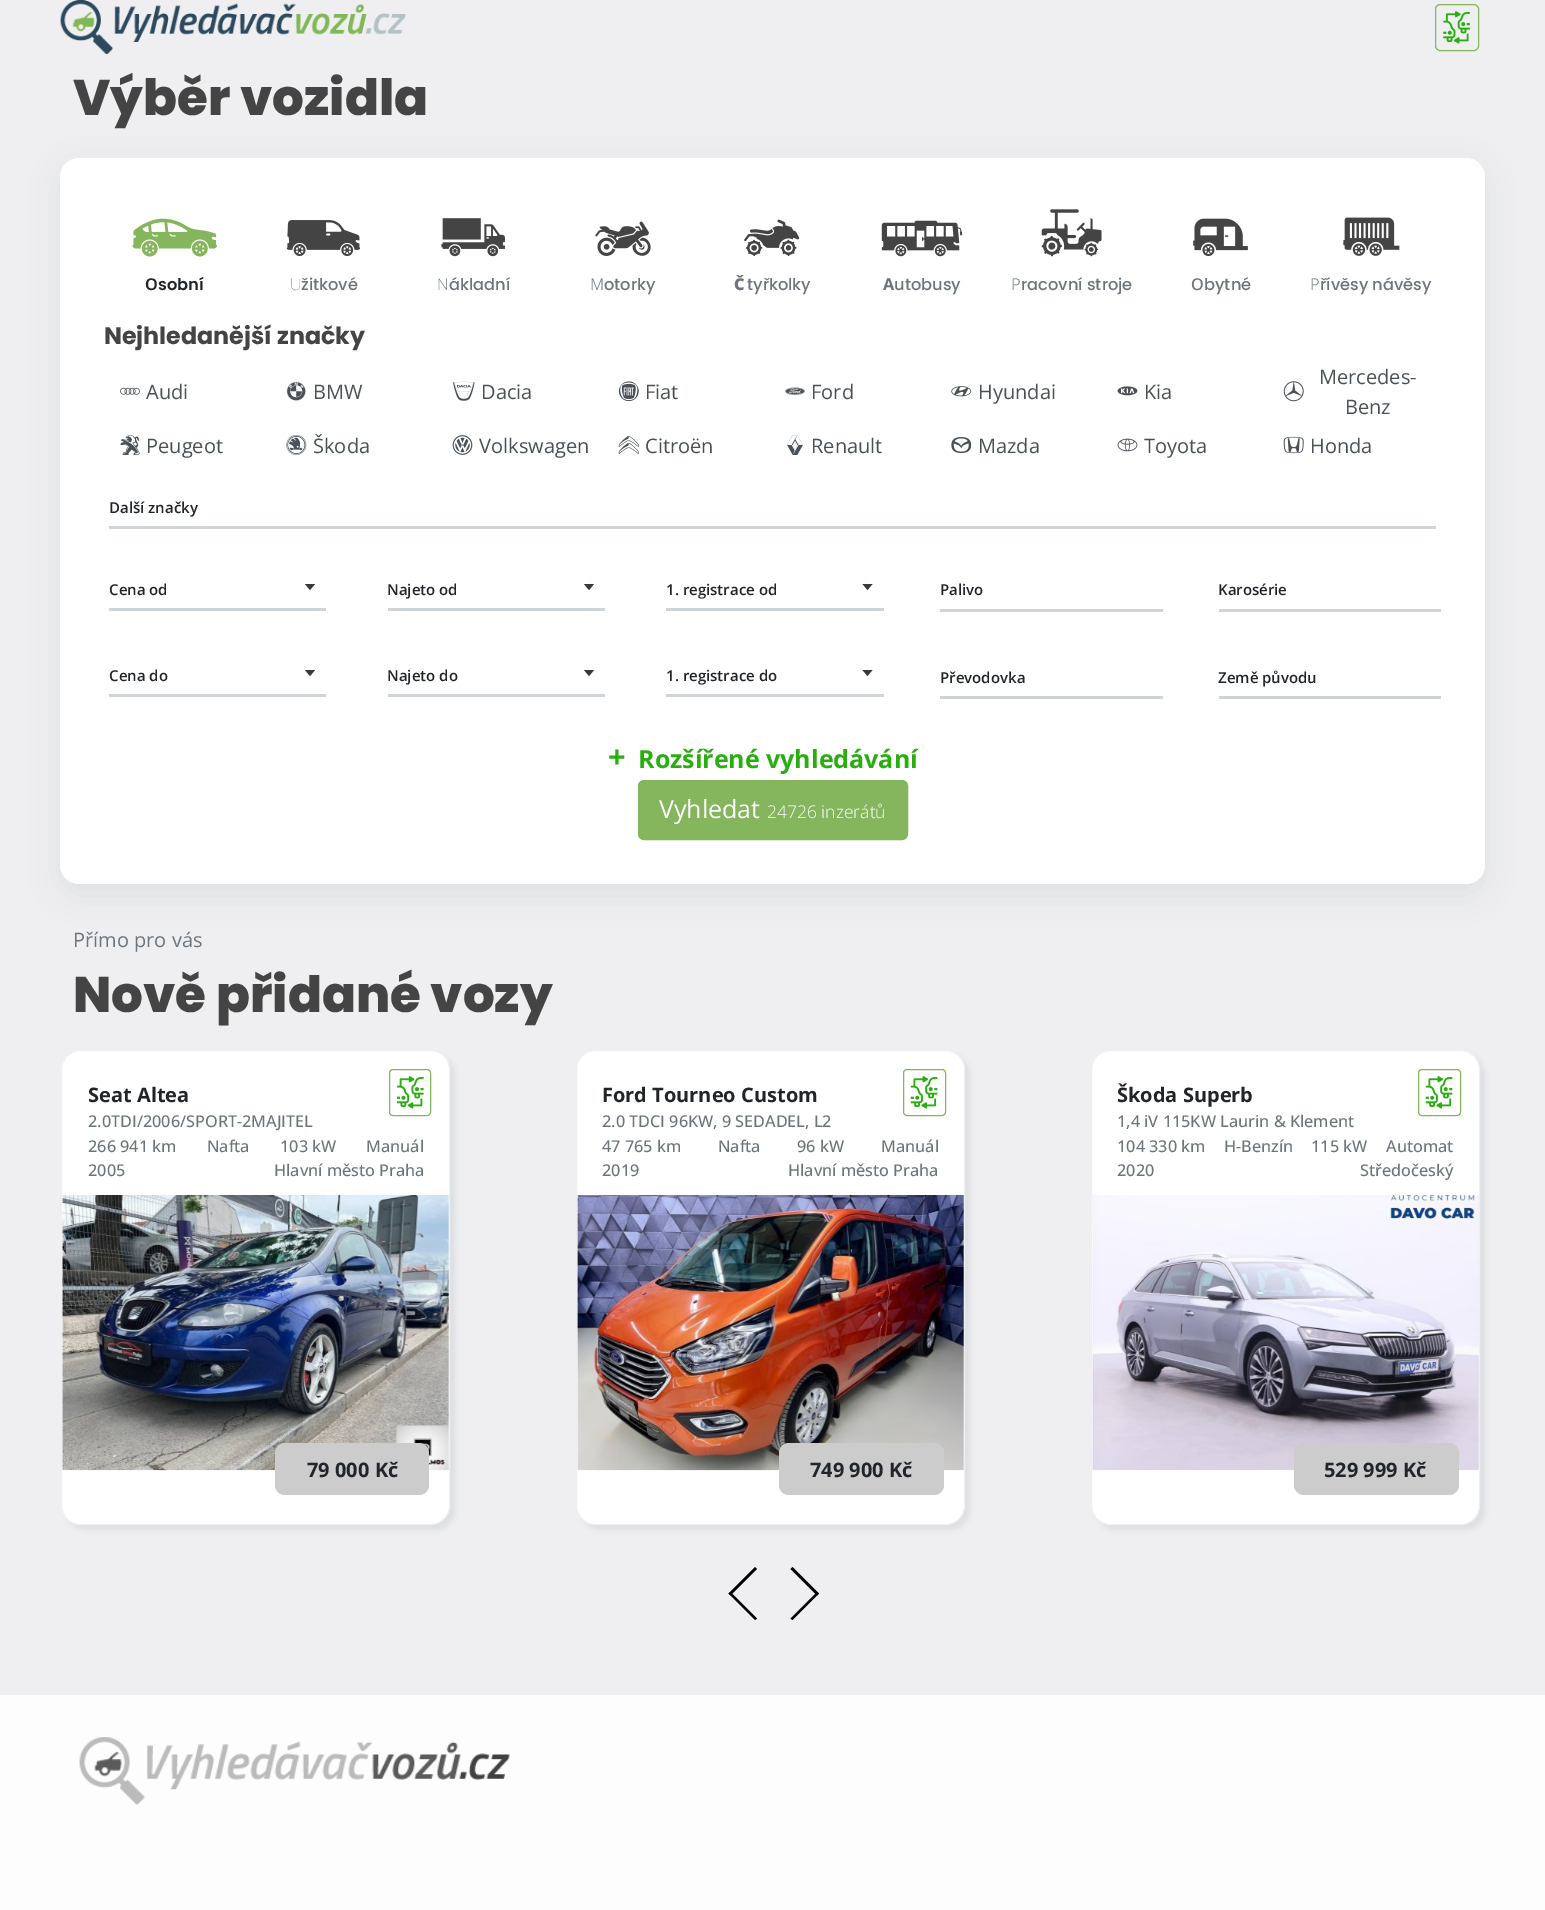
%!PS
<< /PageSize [1545 1910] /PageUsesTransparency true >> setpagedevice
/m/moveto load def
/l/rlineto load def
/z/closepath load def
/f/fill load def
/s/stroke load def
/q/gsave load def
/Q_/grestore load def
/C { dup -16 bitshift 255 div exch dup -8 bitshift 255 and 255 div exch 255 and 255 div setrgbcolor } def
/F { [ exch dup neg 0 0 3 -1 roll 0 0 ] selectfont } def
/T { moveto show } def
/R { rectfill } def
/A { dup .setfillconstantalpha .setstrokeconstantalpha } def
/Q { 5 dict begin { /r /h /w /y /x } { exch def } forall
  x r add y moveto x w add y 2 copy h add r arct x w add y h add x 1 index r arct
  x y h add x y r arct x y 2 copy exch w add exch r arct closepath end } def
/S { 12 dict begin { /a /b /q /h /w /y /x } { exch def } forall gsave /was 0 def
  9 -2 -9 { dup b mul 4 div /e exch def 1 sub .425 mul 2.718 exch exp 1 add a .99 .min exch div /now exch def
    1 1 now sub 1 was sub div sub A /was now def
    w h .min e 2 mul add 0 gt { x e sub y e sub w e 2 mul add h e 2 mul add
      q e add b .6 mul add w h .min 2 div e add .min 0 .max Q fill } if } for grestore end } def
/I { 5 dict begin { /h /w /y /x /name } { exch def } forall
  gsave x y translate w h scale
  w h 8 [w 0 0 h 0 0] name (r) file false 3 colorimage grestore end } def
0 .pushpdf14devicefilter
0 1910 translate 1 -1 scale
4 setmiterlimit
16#EFEFF1 C
0 0 1545 1910 R
(1.rgb) 60 0 346 55 I
16#85B55D C
1435.5 4.5 43 46 4.5 Q s
(2.rgb) 1443 11 27 33 I
16#959DA5 C
60 168 1425 726 19 15 .2 S
/Poppins-ExtraBold 50 F
16#444444 C
(Výběr vozidla) 73 115 T
16#FFFFFF C
60 158 1425 726 19 Q f
(3.rgb) 132 218 85 39 I
/NotoSans-SemiBold 16.25 F
16#212529 C
(O) 145 290 T
/Poppins-SemiBold 16.25 F
(sobní) 158 290 T
(4.rgb) 286 220 75 36 I
/NotoSans-Thin 16.25 F
16#6C757D C
(U) 290 290 T
/Poppins-Medium 16.25 F
(žitkové) 301 290 T
(5.rgb) 441 218 64 39 I
/NotoSans-ExtraLight 16.25 F
(N) 437 290 T
/Poppins-Medium 16.25 F
(ákladní) 449 290 T
(6.rgb) 595 221 56 35 I
/NotoSans-Light 16.25 F
(M) 590 290 T
/Poppins-Medium 16.25 F
(otorky) 604 290 T
(7.rgb) 744 219 56 37 I
/NotoSans-Black 16.25 F
(Č) 734 290 T
/Poppins-Medium 16.25 F
(tyřkolky) 747 290 T
(8.rgb) 881 220 82 37 I
/NotoSans-Bold 16.25 F
(A) 883 290 T
/Poppins-Medium 16.25 F
(utobusy) 894 290 T
(9.rgb) 1041 209 61 48 I
/NotoSans-Light 16.25 F
(P) 1011 290 T
/Poppins-Medium 16.25 F
(racovní stroje) 1021 290 T
(10.rgb) 1193 218 55 38 I
/NotoSans-Medium 16.25 F
(O) 1191 290 T
/Poppins-Medium 16.25 F
(bytné) 1204 290 T
(11.rgb) 1343 217 57 39 I
/NotoSans-Light 16.25 F
(P) 1310 290 T
/Poppins-Medium 16.25 F
(řívěsy návěsy) 1320 290 T
/Poppins-Bold 23.75 F
16#444444 C
(Nejhledanější značky) 104 344 T
(12.rgb) 120 387 20 8 I
/OpenSans-Regular 20 F
16#495057 C
(Audi) 146 399 T
(13.rgb) 286 381 20 20 I
(BMW) 313 399 T
(14.rgb) 453 381 22 20 I
(Dacia) 481 399 T
(15.rgb) 618 381 21 21 I
(Fiat) 645 399 T
(16.rgb) 785 387 20 8 I
(Ford) 811 399 T
(17.rgb) 951 386 21 11 I
(Hyundai) 978 399 T
(18.rgb) 1117 386 21 10 I
(Kia) 1144 399 T
(19.rgb) 1283 381 21 21 I
(Mercedes-) 1319 384 T
(Benz) 1345 414 T
(20.rgb) 120 435 20 20 I
(Peugeot) 146 453 T
(21.rgb) 286 435 21 20 I
(Škoda) 313 453 T
(22.rgb) 452 435 21 20 I
(Volkswagen) 479 453 T
(23.rgb) 618 436 21 18 I
(Citroën) 645 453 T
(24.rgb) 787 435 16 20 I
(Renault) 811 453 T
(25.rgb) 951 437 21 16 I
(Mazda) 978 453 T
(26.rgb) 1117 438 21 14 I
(Toyota) 1144 453 T
(27.rgb) 1283 436 21 18 I
(Honda) 1310 453 T
/OpenSans-SemiBold 15 F
16#212529 C
(Další značky) 109 513 T
16#CED4DA C
109 526 1327 3 R
16#212529 C
(Cena od) 109 595 T
16#CED4DA C
109 608 217 3 R
16#343A40 C
305 584 m 10 0 l -5 6 l z f
16#212529 C
(Cena do) 109 681 T
16#CED4DA C
109 694 217 3 R
16#343A40 C
305 670 m 10 0 l -5 6 l z f
16#212529 C
(Najeto od) 387 595 T
16#CED4DA C
388 608 217 3 R
16#343A40 C
584 584 m 10 0 l -5 6 l z f
16#212529 C
(Najeto do) 387 681 T
16#CED4DA C
388 694 217 3 R
16#343A40 C
584 670 m 10 0 l -5 6 l z f
16#212529 C
(1. registrace od) 666 595 T
16#CED4DA C
666 608 218 3 R
16#343A40 C
862.5 584 m 10 0 l -5 6 l z f
16#212529 C
(1. registrace do) 666 681 T
16#CED4DA C
666 694 218 3 R
16#343A40 C
862.5 670 m 10 0 l -5 6 l z f
16#212529 C
(Palivo) 940 595 T
16#CED4DA C
940 609 223 3 R
16#212529 C
(Převodovka) 940 683 T
16#CED4DA C
940 696 223 3 R
16#212529 C
(Karosérie) 1218 595 T
16#CED4DA C
1219 609 222 3 R
16#212529 C
(Země původu) 1218 683 T
16#CED4DA C
1219 696 222 3 R
/OpenSans-Bold 31 F
16#28AF0F C
(+) 608 768 T
/OpenSans-Bold 25 F
(Rozšířené vyhledávání) 638 768 T
16#85B55D C
638.5 780.5 269 59 5.5 Q q f Q_
s
/OpenSans-Regular 25 F
16#FFFFFF C
(Vyhledat) 659 818 T
/OpenSans-Light 17.5 F
(24726 inzerátů) 767 818 T
/OpenSans-Regular 20 F
16#6C757D C
(Přímo pro vás) 73 947 T
/Poppins-ExtraBold 50 F
16#444444 C
(Nově přidané vozy) 73 1012 T
16#959DA5 C
66 1055 389 475 19 2.5 .2 S
16#FFFFFF C
61.5 1050.5 388 474 18.5 Q q f Q_
16#EFEFF1 C
s
16#85B55D C
389.5 1069.5 41 46 3.5 Q s
(28.rgb) 397 1076 27 33 I
/OpenSans-Bold 20 F
16#212529 C
(Seat Altea) 88 1102 T
/OpenSans-Medium 16.25 F
16#6C757D C
(2.0TDI/2006/SPORT-2MAJITEL) 88 1127 T
(266 941 km) 88 1152 T
(Nafta) 207 1152 T
(103 kW) 280 1152 T
(Manuál) 366 1152 T
(2005) 88 1176 T
(Hlavní město Praha) 274 1176 T
(29.rgb) 62 1195 387 276 I
16#CCCCCC C
275 1443 154 52 10 Q f
/OpenSans-Bold 20 F
16#212529 C
(79 000 Kč) 307 1477 T
16#959DA5 C
581 1055 389 475 19 2.5 .2 S
16#FFFFFF C
576.5 1050.5 388 474 18.5 Q q f Q_
16#EFEFF1 C
s
16#85B55D C
903.5 1069.5 42 46 3.5 Q s
(30.rgb) 910 1076 28 33 I
16#212529 C
(Ford Tourneo Custom) 602 1102 T
/OpenSans-Medium 16.25 F
16#6C757D C
(2.0 TDCI 96KW, 9 SEDADEL, L2) 602 1127 T
(47 765 km) 602 1152 T
(Nafta) 718 1152 T
(96 kW) 797 1152 T
(Manuál) 881 1152 T
(2019) 602 1176 T
(Hlavní město Praha) 788 1176 T
(31.rgb) 577 1195 387 276 I
16#CCCCCC C
779 1443 165 52 10 Q f
/OpenSans-Bold 20 F
16#212529 C
(749 900 Kč) 810 1477 T
16#959DA5 C
1096 1055 389 475 19 2.5 .2 S
16#FFFFFF C
1091.5 1050.5 388 474 18.5 Q q f Q_
16#EFEFF1 C
s
16#85B55D C
1418.5 1069.5 42 46 3.5 Q s
(30.rgb) 1425 1076 28 33 I
16#212529 C
(Škoda Superb) 1117 1102 T
/OpenSans-Medium 16.25 F
16#6C757D C
(1,4 iV 115KW Laurin & Klement) 1117 1127 T
(104 330 km) 1117 1152 T
(H-Benzín) 1224 1152 T
(115 kW) 1311 1152 T
(Automat) 1386 1152 T
(2020) 1117 1176 T
(Středočeský) 1360 1176 T
(32.rgb) 1092 1195 387 276 I
16#CCCCCC C
1294 1443 165 52 10 Q f
/OpenSans-Bold 20 F
16#212529 C
(529 999 Kč) 1324 1477 T
16#000000 C
728.5 1593.5 m 26.5 -26.5 l 2 2 l -26.5 26.5 l z f
728.5 1593.5 m 2 -1.5 l 26.5 26.5 l -2 1.5 l z f
819 1593.5 m -26.5 26.5 l -2 -1.5 l 26.5 -26.5 l z f
819 1593.5 m -2 2 l -26.5 -26.5 l 2 -2 l z f
16#FDFDFE C
0 1695 1545 215 R
(33.rgb) 79 1737 431 68 I
.poppdf14devicefilter showpage
